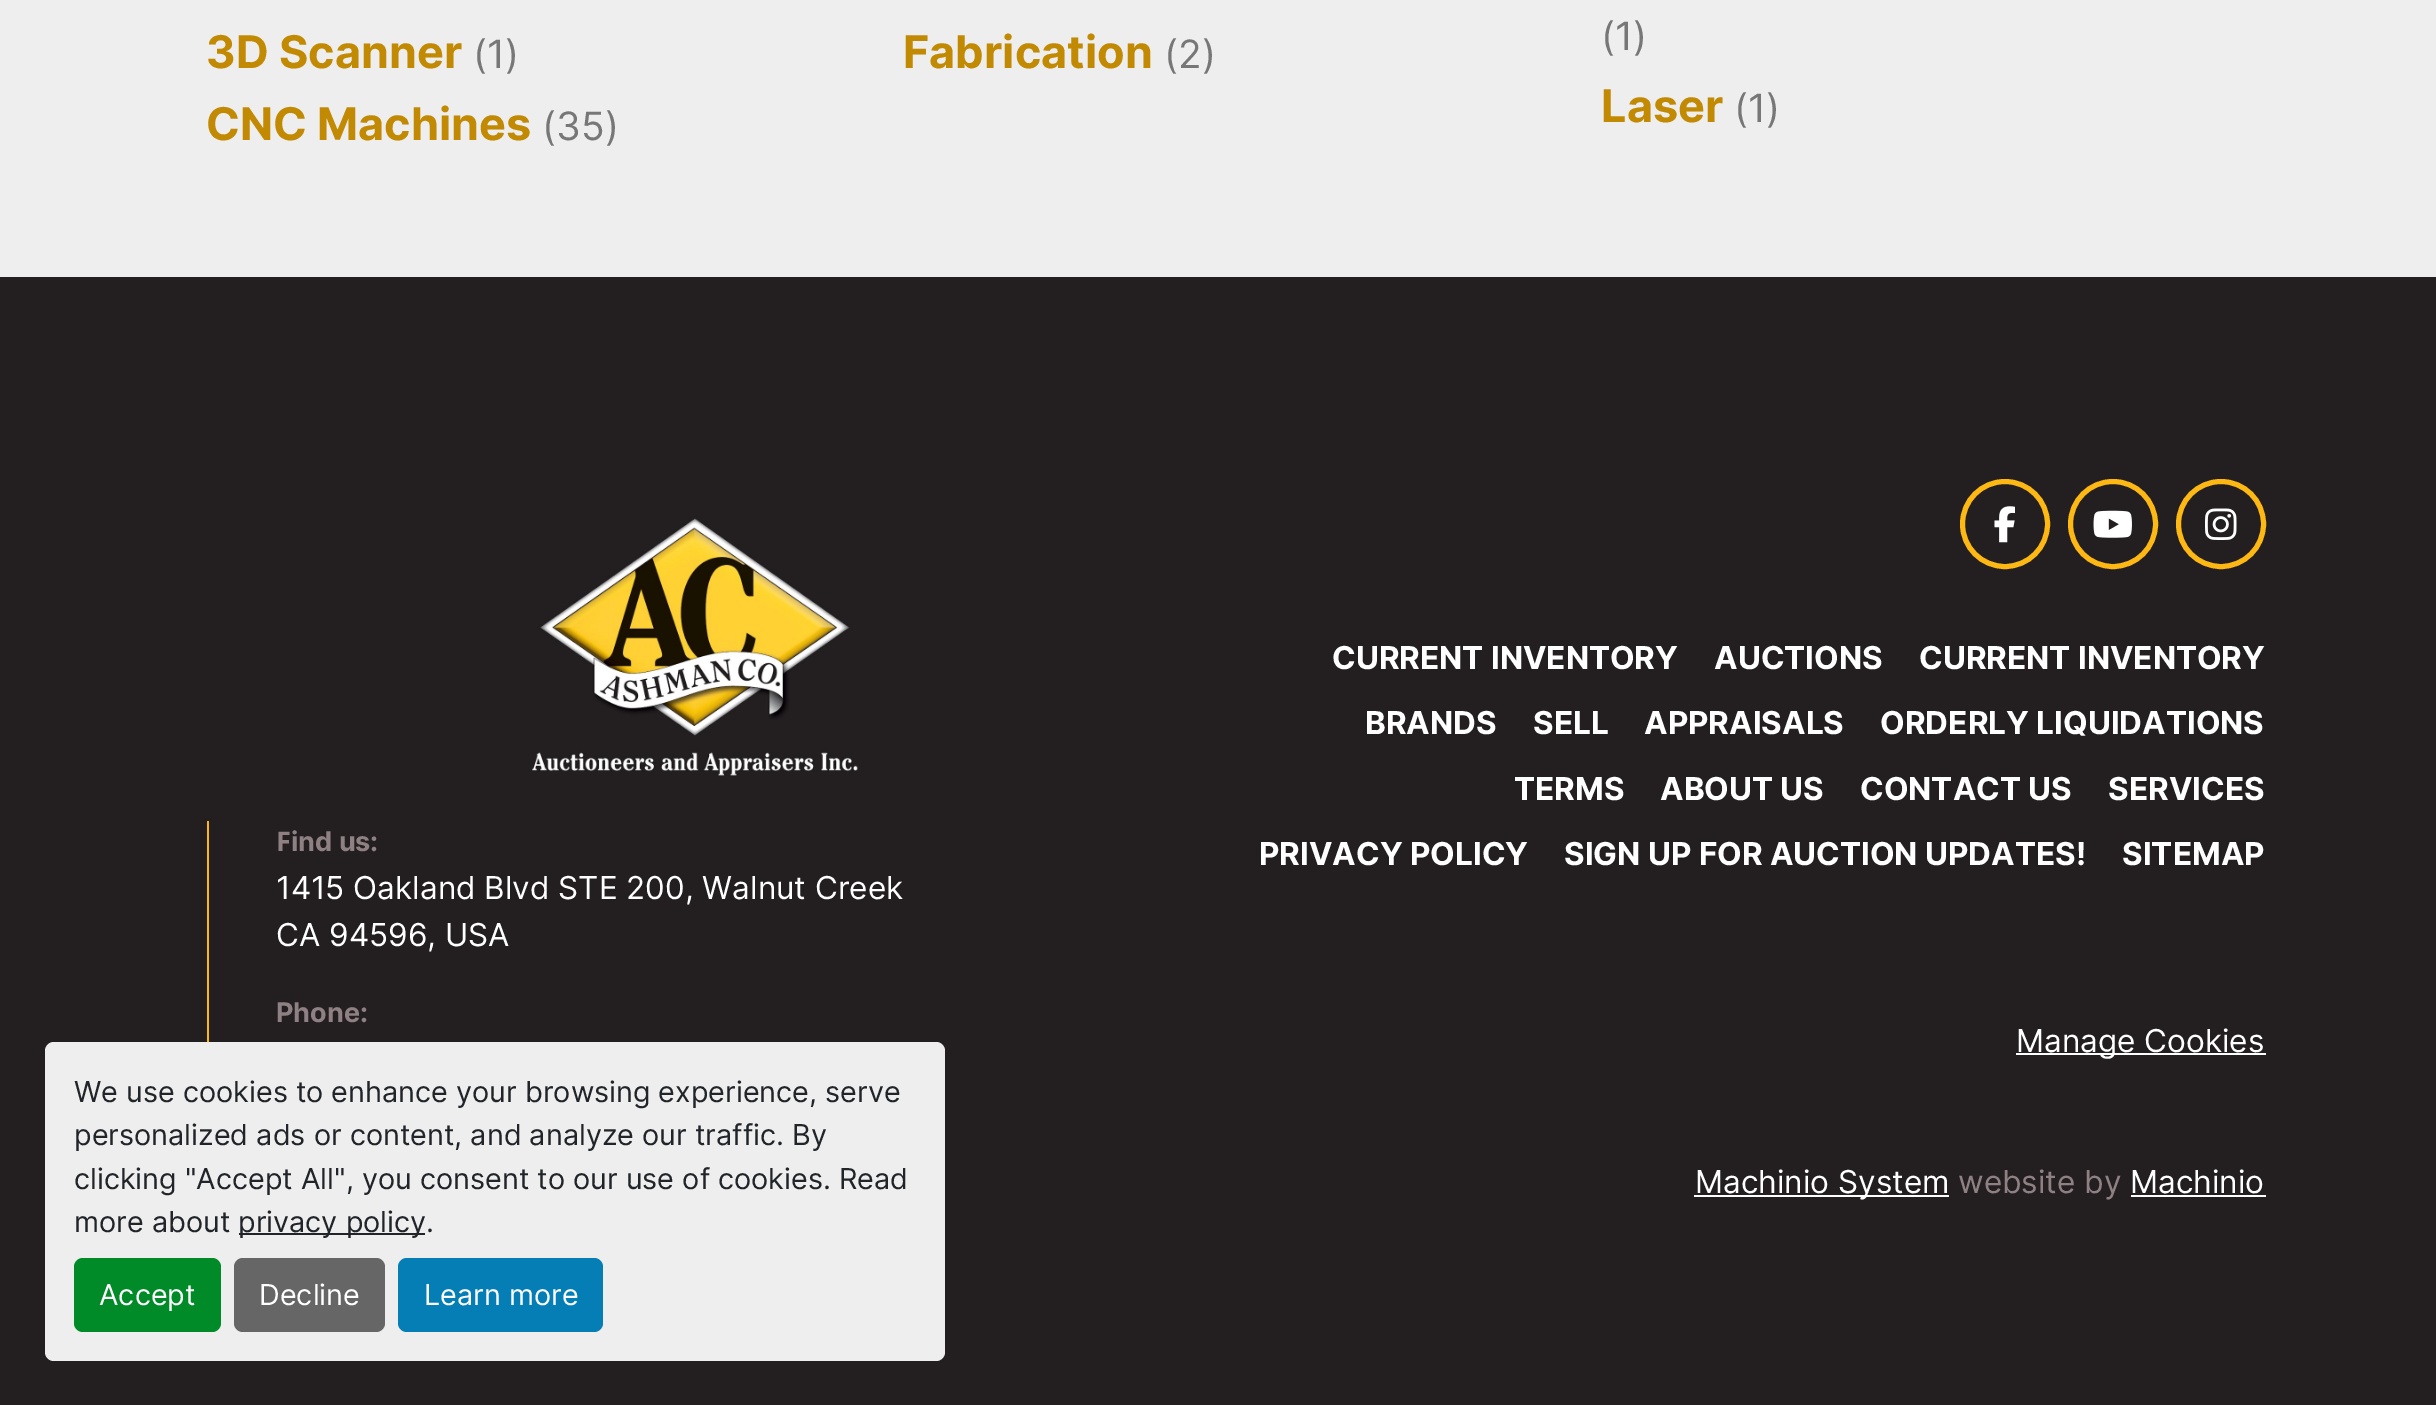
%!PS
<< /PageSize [2436 1405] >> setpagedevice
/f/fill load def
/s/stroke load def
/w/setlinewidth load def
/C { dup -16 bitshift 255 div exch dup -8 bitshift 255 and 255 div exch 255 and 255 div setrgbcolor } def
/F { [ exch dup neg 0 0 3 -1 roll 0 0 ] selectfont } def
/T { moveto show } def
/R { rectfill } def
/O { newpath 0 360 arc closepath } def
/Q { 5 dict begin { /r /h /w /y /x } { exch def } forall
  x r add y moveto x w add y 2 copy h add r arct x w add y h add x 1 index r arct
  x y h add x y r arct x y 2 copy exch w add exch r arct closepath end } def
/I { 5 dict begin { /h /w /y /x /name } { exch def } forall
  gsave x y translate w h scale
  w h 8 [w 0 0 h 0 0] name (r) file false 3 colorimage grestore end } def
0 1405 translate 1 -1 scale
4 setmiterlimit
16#EEEEEE C
0 0 2436 1405 R
/Inter-Bold 45 F
16#C28902 C
(3D Scanner) 206 68 T
/Inter-Regular 39 F
16#777777 C
(\(1\)) 473 68 T
/Inter-Bold 45 F
16#C28902 C
(CNC Machines) 206 140 T
/Inter-Regular 39 F
16#777777 C
(\(35\)) 542 140 T
/Inter-Bold 45 F
16#C28902 C
(Fabrication) 903 68 T
/Inter-Regular 39 F
16#777777 C
(\(2\)) 1164 68 T
(\(1\)) 1601 50 T
/Inter-Bold 45 F
16#C28902 C
(Laser) 1601 122 T
/Inter-Regular 39 F
16#777777 C
(\(1\)) 1734 122 T
16#231F20 C
0 277 2436 1128 R
(1.rgb) 532 518 326 259 I
16#FDB813 C
207 821 2 221 R
/NotoSans-Bold 27 F
16#8E8083 C
(F) 276 851 T
/Inter-Bold 27 F
(ind us:) 291 851 T
/Inter-Regular 31.5 F
16#FFFFFF C
(1415 Oakland Blvd STE 200, Walnut Creek) 276 899 T
(CA 94596, USA) 276 946 T
/Inter-Bold 27 F
16#8E8083 C
(Phone:) 276 1022 T
16#FDB813 C
5 w
2005 524 42.5 O s
(2.rgb) 1994 506 21 37 I
2113 524 42.5 O s
(3.rgb) 2093 510 39 28 I
2221 524 42.5 O s
(4.rgb) 2205 508 32 32 I
/Inter-Bold 31.5 F
16#FFFFFF C
(CURRENT INVENTORY) 1332 669 T
(AUCTIONS) 1714 669 T
(CURRENT INVENTORY) 1919 669 T
(BRANDS) 1365 734 T
(SELL) 1533 734 T
(APPRAISALS) 1644 734 T
(ORDERLY LIQUIDATIONS) 1880 734 T
(TERMS) 1514 800 T
(ABOUT US) 1660 800 T
(CONTACT US) 1860 800 T
(SERVICES) 2108 800 T
(PRIVACY POLICY) 1259 865 T
(SIGN UP FOR AUCTION UPDATES!) 1564 865 T
(SITEMAP) 2122 865 T
2016 1053 250 2 R
/Inter-Regular 31.5 F
(Manage Cookies) 2016 1052 T
1694 1195 255 2 R
(Machinio System) 1695 1193 T
16#8E8083 C
(website by) 1958 1193 T
16#FFFFFF C
(Machinio) 2130 1193 T
2131 1195 135 2 R
16#EEEEEE C
45 1042 900 319 9 Q f
/Inter-Regular 28.8 F
16#212529 C
(We use cookies to enhance your browsing experience, serve) 74 1102 T
(personalized ads or content, and analyze our traffic. By) 74 1145 T
(clicking "Accept All", you consent to our use of cookies. Read) 74 1189 T
(more about) 74 1232 T
239 1233 186 2 R
(privacy policy.) 238 1232 T
16#008A28 C
74 1258 147 74 9 Q f
16#FFFFFF C
(Accept) 99 1305 T
16#666666 C
234 1258 151 74 9 Q f
16#FFFFFF C
(Decline) 259 1305 T
16#057EB6 C
398 1258 205 74 9 Q f
16#FFFFFF C
(Learn more) 424 1305 T
showpage
